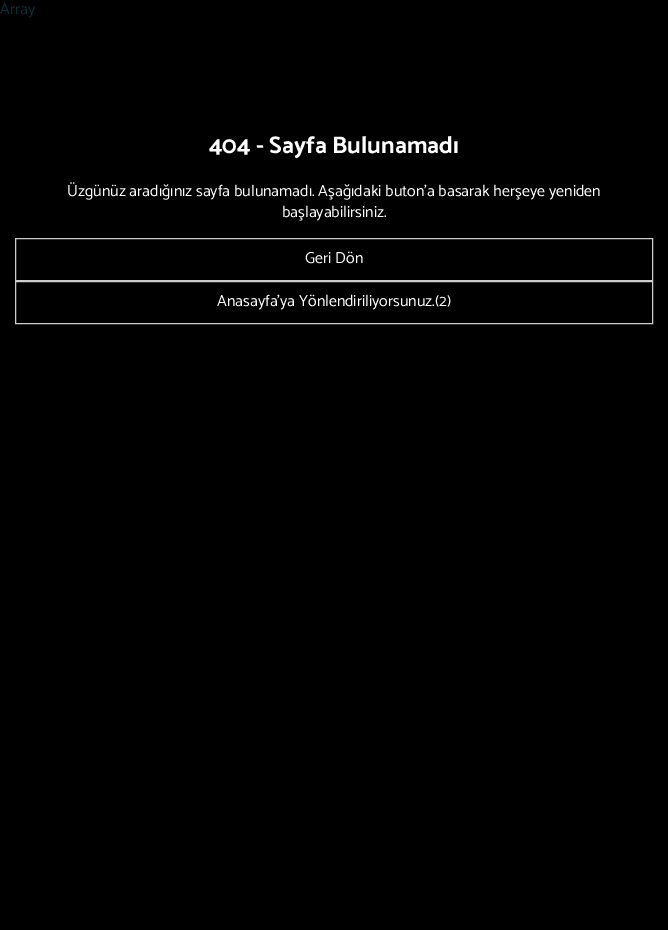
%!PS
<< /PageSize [668 930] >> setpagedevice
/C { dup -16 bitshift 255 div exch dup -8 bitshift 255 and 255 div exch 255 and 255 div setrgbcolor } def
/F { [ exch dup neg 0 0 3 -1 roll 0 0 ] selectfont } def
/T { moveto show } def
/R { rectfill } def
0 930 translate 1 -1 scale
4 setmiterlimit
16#000000 C
0 0 668 930 R
/Catamaran-Regular 16 F
16#0A303A C
(Array) 0 14 T
/Catamaran-Bold 24 F
16#FFFFFF C
(404 - Sayfa Bulunamadı) 209 153 T
/Catamaran-Regular 16 F
(Üzgünüz aradığınız sayfa bulunamadı. Aşağıdaki buton'a basarak herşeye yeniden) 67 196 T
(başlayabilirsiniz.) 282 217 T
16#CCCCCC C
15.5 238.5 637 42 rectstroke
16#FFFFFF C
(Geri Dön) 305 263 T
16#CCCCCC C
15.5 281.5 637 42 rectstroke
16#FFFFFF C
(Anasayfa'ya Yönlendiriliyorsunuz.\(2\)) 217 306 T
showpage
